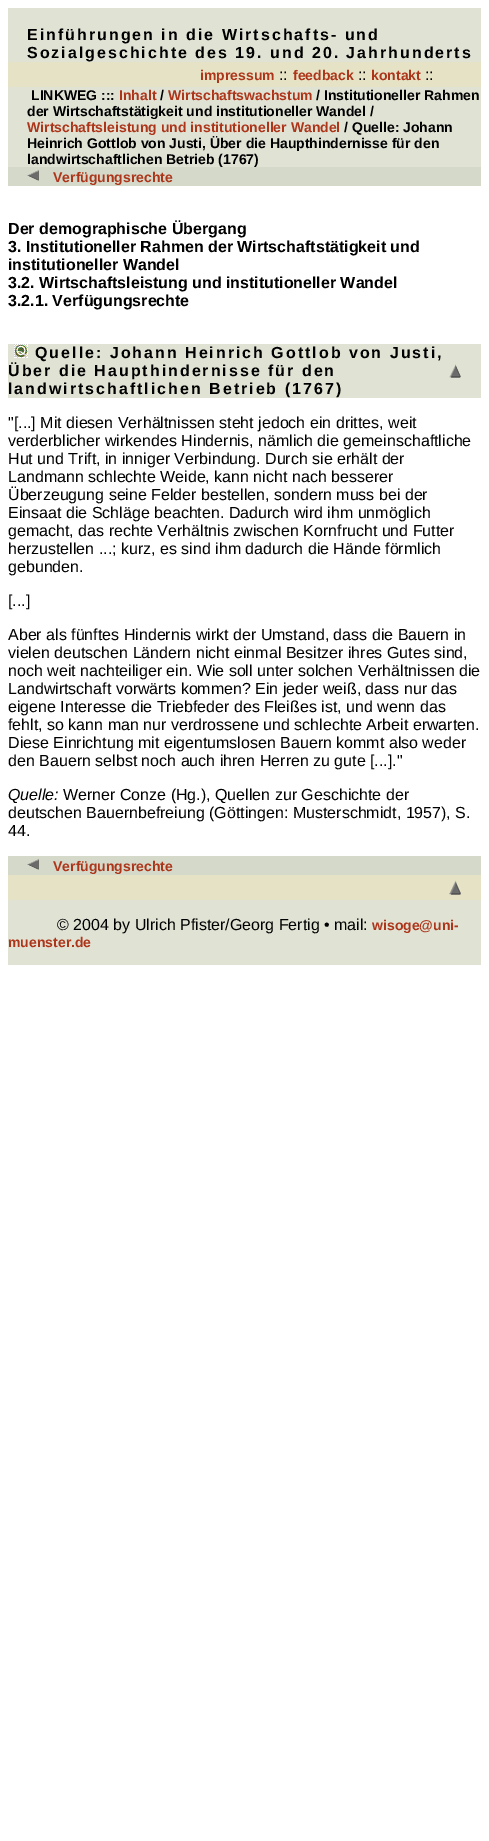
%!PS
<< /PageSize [489 1841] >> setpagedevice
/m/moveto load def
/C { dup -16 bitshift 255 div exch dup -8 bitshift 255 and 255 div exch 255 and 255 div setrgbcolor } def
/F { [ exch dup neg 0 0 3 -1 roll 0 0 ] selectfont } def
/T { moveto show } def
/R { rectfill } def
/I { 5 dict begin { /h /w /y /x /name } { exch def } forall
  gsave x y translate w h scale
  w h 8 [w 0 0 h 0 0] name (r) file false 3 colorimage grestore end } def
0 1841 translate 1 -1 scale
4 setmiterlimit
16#FFFFFF C
0 0 489 1841 R
16#E0E2D4 C
8 8 473 54 R
/LiberationSans-Bold 16 F
16#000000 C
27 40 m 2 0 (Einführungen in die Wirtschafts- und) ashow
27 58 m 2 0 (Sozialgeschichte des 19. und 20. Jahrhunderts) ashow
16#E5E2C5 C
8 62 473 25 R
/LiberationSans-Bold 14 F
16#AD351A C
(impressum) 200 80 T
/LiberationSans-Regular 16 F
16#000000 C
(::) 279 80 T
/LiberationSans-Bold 14 F
16#AD351A C
(feedback) 293 80 T
/LiberationSans-Regular 16 F
16#000000 C
(::) 358 80 T
/LiberationSans-Bold 14 F
16#AD351A C
(kontakt) 371 80 T
/LiberationSans-Regular 16 F
16#000000 C
(::) 425 80 T
16#E0E2D4 C
8 87 473 80 R
/LiberationSans-Bold 14 F
16#000000 C
(LINKWEG :::) 31 100 T
16#AD351A C
(Inhalt) 119 100 T
16#000000 C
(/) 160 100 T
16#AD351A C
(Wirtschaftswachstum) 168 100 T
16#000000 C
(/ Institutioneller Rahmen) 316 100 T
(der Wirtschaftstätigkeit und institutioneller Wandel /) 27 116 T
16#AD351A C
(Wirtschaftsleistung und institutioneller Wandel) 27 132 T
16#000000 C
(/ Quelle: Johann) 344 132 T
(Heinrich Gottlob von Justi, Über die Haupthindernisse für den) 27 148 T
(landwirtschaftlichen Betrieb \(1767\)) 27 164 T
16#D4D9CA C
8 167 473 19 R
(1.rgb) 27 169 12 12 I
16#AD351A C
(Verfügungsrechte) 53 182 T
/LiberationSans-Bold 16 F
16#000000 C
(Der demographische Übergang) 8 234 T
(3. Institutioneller Rahmen der Wirtschaftstätigkeit und) 8 252 T
(institutioneller Wandel) 8 270 T
(3.2. Wirtschaftsleistung und institutioneller Wandel) 8 288 T
(3.2.1. Verfügungsrechte) 8 306 T
16#E0E2D4 C
8 344 441 54 R
(2.rgb) 14 344 14 14 I
16#000000 C
35 358 m 2 0 (Quelle: Johann Heinrich Gottlob von Justi,) ashow
8 376 m 2 0 (Über die Haupthindernisse für den) ashow
8 394 m 2 0 (landwirtschaftlichen Betrieb \(1767\)) ashow
16#E0E2D4 C
449 344 32 54 R
(3.rgb) 449 364 12 14 I
/LiberationSans-Regular 16 F
16#000000 C
("[...] Mit diesen Verhältnissen steht jedoch ein drittes, weit) 8 428 T
(verderblicher wirkendes Hindernis, nämlich die gemeinschaftliche) 8 446 T
(Hut und Trift, in inniger Verbindung. Durch sie erhält der) 8 464 T
(Landmann schlechte Weide, kann nicht nach besserer) 8 482 T
(Überzeugung seine Felder bestellen, sondern muss bei der) 8 500 T
(Einsaat die Schläge beachten. Dadurch wird ihm unmöglich) 8 518 T
(gemacht, das rechte Verhältnis zwischen Kornfrucht und Futter) 8 536 T
(herzustellen ...; kurz, es sind ihm dadurch die Hände förmlich) 8 554 T
(gebunden.) 8 572 T
([...]) 8 606 T
(Aber als fünftes Hindernis wirkt der Umstand, dass die Bauern in) 8 640 T
(vielen deutschen Ländern nicht einmal Besitzer ihres Gutes sind,) 8 658 T
(noch weit nachteiliger ein. Wie soll unter solchen Verhältnissen die) 8 676 T
(Landwirtschaft vorwärts kommen? Ein jeder weiß, dass nur das) 8 694 T
(eigene Interesse die Triebfeder des Fleißes ist, und wenn das) 8 712 T
(fehlt, so kann man nur verdrossene und schlechte Arbeit erwarten.) 8 730 T
(Diese Einrichtung mit eigentumslosen Bauern kommt also weder) 8 748 T
(den Bauern selbst noch auch ihren Herren zu gute [...].") 8 766 T
/LiberationSans-Italic 16 F
(Quelle:) 8 800 T
/LiberationSans-Regular 16 F
(Werner Conze \(Hg.\), Quellen zur Geschichte der) 63 800 T
(deutschen Bauernbefreiung \(Göttingen: Musterschmidt, 1957\), S.) 8 818 T
(44.) 8 836 T
16#D4D9CA C
8 856 473 19 R
(1.rgb) 27 858 12 12 I
/LiberationSans-Bold 14 F
16#AD351A C
(Verfügungsrechte) 53 871 T
16#E5E2C5 C
8 875 473 25 R
(4.rgb) 449 880 12 15 I
16#E0E2D4 C
8 900 473 65 R
/LiberationSans-Regular 16 F
16#000000 C
(© 2004 by Ulrich Pfister/Georg Fertig • mail:) 57 930 T
/LiberationSans-Bold 14 F
16#AD351A C
(wisoge@uni-) 372 930 T
(muenster.de) 8 947 T
showpage
